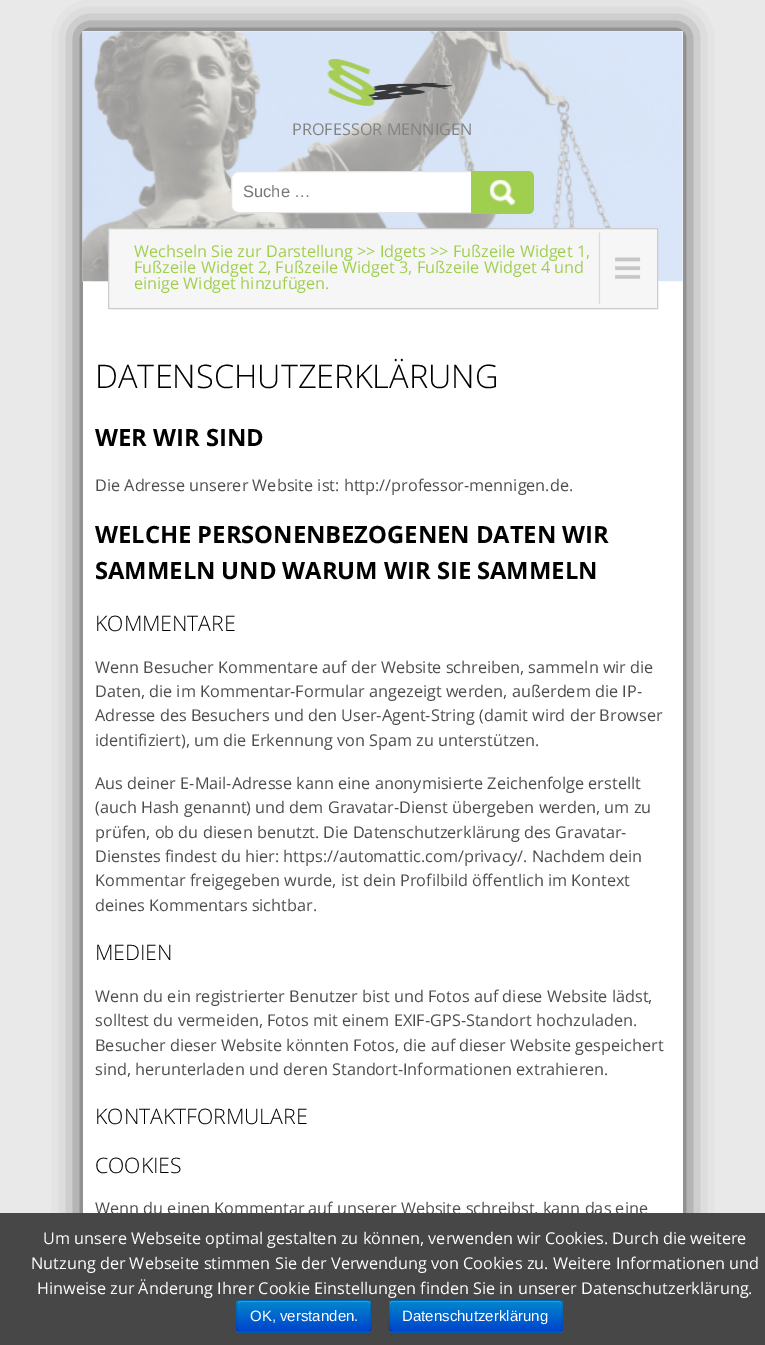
%!PS
<< /PageSize [765 1345] /PageUsesTransparency true >> setpagedevice
/m/moveto load def
/l/rlineto load def
/c/rcurveto load def
/z/closepath load def
/f/fill load def
/s/stroke load def
/q/gsave load def
/Q_/grestore load def
/w/setlinewidth load def
/C { dup -16 bitshift 255 div exch dup -8 bitshift 255 and 255 div exch 255 and 255 div setrgbcolor } def
/F { [ exch dup neg 0 0 3 -1 roll 0 0 ] selectfont } def
/T { moveto show } def
/R { rectfill } def
/A { dup .setfillconstantalpha .setstrokeconstantalpha } def
/Q { 5 dict begin { /r /h /w /y /x } { exch def } forall
  x r add y moveto x w add y 2 copy h add r arct x w add y h add x 1 index r arct
  x y h add x y r arct x y 2 copy exch w add exch r arct closepath end } def
/S { 12 dict begin { /a /b /q /h /w /y /x } { exch def } forall gsave /was 0 def
  9 -2 -9 { dup b mul 4 div /e exch def 1 sub .425 mul 2.718 exch exp 1 add a .99 .min exch div /now exch def
    1 1 now sub 1 was sub div sub A /was now def
    w h .min e 2 mul add 0 gt { x e sub y e sub w e 2 mul add h e 2 mul add
      q e add b .6 mul add w h .min 2 div e add .min 0 .max Q fill } if } for grestore end } def
/I { 5 dict begin { /h /w /y /x /name } { exch def } forall
  gsave x y translate w h scale
  w h 8 [w 0 0 h 0 0] name (r) file false 3 colorimage grestore end } def
0 .pushpdf14devicefilter
0 1345 translate 1 -1 scale
4 setmiterlimit
16#EAE9E9 C
0 0 765 1345 R
16#000000 C
83 31 600 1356 0 14 .75 S
16#FFFFFF C
83 31 600 1182 R
(1.rgb) 82 31 601 251 I
(2.rgb) 327 59 127 47 I
/OpenSans-Regular 16.25 F
16#838482 C
(PROFESSOR MENNIGEN) 292 135 T
16#FFFFFF C
231.5 171.5 302 41 7.5 Q q f Q_
16#E3E4E5 C
s
/LiberationSans-Regular 16.5 F
16#777777 C
(Suche …) 243 197 T
16#A0CE4E C
471 171 m 57 0 l 3.5 0 6 2.5 6 6 c 0 31 l 0 3.5 -2.5 6 -6 6 c -57 0 l z f
(3.rgb) 489 179 27 27 I
16#F6F6F6 C
109 229 548 79 R
(4.rgb) 598 232 43 72 I
16#CCCCCC C
108.5 228.5 549 80 rectstroke
/OpenSans-Regular 16.25 F
16#A0CE4E C
(Wechseln Sie zur Darstellung >> Idgets >> Fußzeile Widget 1,) 134 257 T
(Fußzeile Widget 2, Fußzeile Widget 3, Fußzeile Widget 4 und) 134 273 T
(einige Widget hinzufügen.) 134 289 T
/OpenSans-Light 32.5 F
16#000000 C
(DATENSCHUTZERKLÄRUNG) 95 388 T
/OpenSans-Bold 23.75 F
(WER WIR SIND) 95 446 T
/OpenSans-Regular 16.25 F
16#4D4D4D C
(Die Adresse unserer Website ist: http://professor-mennigen.de.) 95 491 T
/OpenSans-Bold 23.75 F
16#000000 C
(WELCHE PERSONENBEZOGENEN DATEN WIR) 95 543 T
(SAMMELN UND WARUM WIR SIE SAMMELN) 95 579 T
/OpenSans-Light 21.25 F
(KOMMENTARE) 95 631 T
/OpenSans-Regular 16.25 F
16#4D4D4D C
(Wenn Besucher Kommentare auf der Website schreiben, sammeln wir die) 95 673 T
(Daten, die im Kommentar-Formular angezeigt werden, außerdem die IP-) 95 697 T
(Adresse des Besuchers und den User-Agent-String \(damit wird der Browser) 95 721 T
(identifiziert\), um die Erkennung von Spam zu unterstützen.) 95 746 T
(Aus deiner E-Mail-Adresse kann eine anonymisierte Zeichenfolge erstellt) 95 789 T
(\(auch Hash genannt\) und dem Gravatar-Dienst übergeben werden, um zu) 95 813 T
(prüfen, ob du diesen benutzt. Die Datenschutzerklärung des Gravatar-) 95 838 T
(Dienstes findest du hier: https://automattic.com/privacy/. Nachdem dein) 95 862 T
(Kommentar freigegeben wurde, ist dein Profilbild öffentlich im Kontext) 95 886 T
(deines Kommentars sichtbar.) 95 911 T
/OpenSans-Light 21.25 F
16#000000 C
(MEDIEN) 95 960 T
/OpenSans-Regular 16.25 F
16#4D4D4D C
(Wenn du ein registrierter Benutzer bist und Fotos auf diese Website lädst,) 95 1002 T
(solltest du vermeiden, Fotos mit einem EXIF-GPS-Standort hochzuladen.) 95 1026 T
(Besucher dieser Website könnten Fotos, die auf dieser Website gespeichert) 95 1051 T
(sind, herunterladen und deren Standort-Informationen extrahieren.) 95 1075 T
/OpenSans-Light 21.25 F
16#000000 C
(KONTAKTFORMULARE) 95 1124 T
(COOKIES) 95 1173 T
/OpenSans-Regular 16.25 F
16#4D4D4D C
(Wenn du einen Kommentar auf unserer Website schreibst, kann das eine) 95 1214 T
16#474747 C
0 1213 765 132 R
16#FFFFFF C
(Um unsere Webseite optimal gestalten zu können, verwenden wir Cookies. Durch die weitere) 43 1244 T
(Nutzung der Webseite stimmen Sie der Verwendung von Cookies zu. Weitere Informationen und) 31 1269 T
(Hinweise zur Änderung Ihrer Cookie Einstellungen finden Sie in unserer Datenschutzerklärung.) 37 1294 T
16#006DCC C
236 1300 135 33 4 Q f
q
236 1300 135 33 4 Q clip newpath
q 236 1301 m 135 0 l 0 30 l -135 0 l z clip newpath
<< /ShadingType 2 /ColorSpace /DeviceRGB /Coords [304 1301 304 1331] /Extend [true true] /Function << /FunctionType 2 /Domain [0 1] /C0 [0 .533 .8] /C1 [0 .267 .8] /N 1 >> >> shfill Q_
Q_
16#339FD6 C
240 1302 m 128 0 l 1 0 2 2 2 3 c 0 -1 l 0 -2 -1 -3 -2 -3 c -128 0 l -1 0 -2 1 -2 3 c 0 1 l 0 -1 1 -3 2 -3 c z f
0.25 A
16#000000 C
1.2 w
369.5 1331 m -2 1 l -127.5 0 l -2 -1 l s
0.1 A
238 1331 m -2.5 -2 -1 -8 -1 -10.5 c 0 -25.5 -4 -20 24 -20 c 85 0 l 28.5 0 24.5 -5.5 24.5 20 c 0 2.5 1.5 8.5 -1 10.5 c s
/LiberationSans-Regular 15 F
1 A
16#FFFFFF C
(OK, verstanden.) 250 1321 T
16#006DCC C
389 1300 174 33 4 Q f
q
389 1300 174 33 4 Q clip newpath
q 389 1301 m 174 0 l 0 30 l -174 0 l z clip newpath
<< /ShadingType 2 /ColorSpace /DeviceRGB /Coords [476 1301 476 1331] /Extend [true true] /Function << /FunctionType 2 /Domain [0 1] /C0 [0 .533 .8] /C1 [0 .267 .8] /N 1 >> >> shfill Q_
Q_
16#339FD6 C
392 1302 m 167 0 l 1 0 2 2 2 3 c 0 -1 l 0 -2 -1 -3 -3 -3 c -166 0 l -1 0 -2 1 -2 3 c 0 1 l 0 -1 1 -3 2 -3 c z f
0.25 A
16#000000 C
561 1331 m -2 1 l -166.5 0 l -2 -1 l s
0.1 A
390.5 1331 m -2.5 -2 -1 -12 -1 -15 c 0 -8 l 0 -2.5 -1 -7.5 3 -7.5 c 166.5 0 l 3.5 0 3 5 3 7.5 c 0 8 l 0 3 1 13 -1 15 c s
1 A
16#FFFFFF C
(Datenschutzerklärung) 402 1321 T
.poppdf14devicefilter showpage
